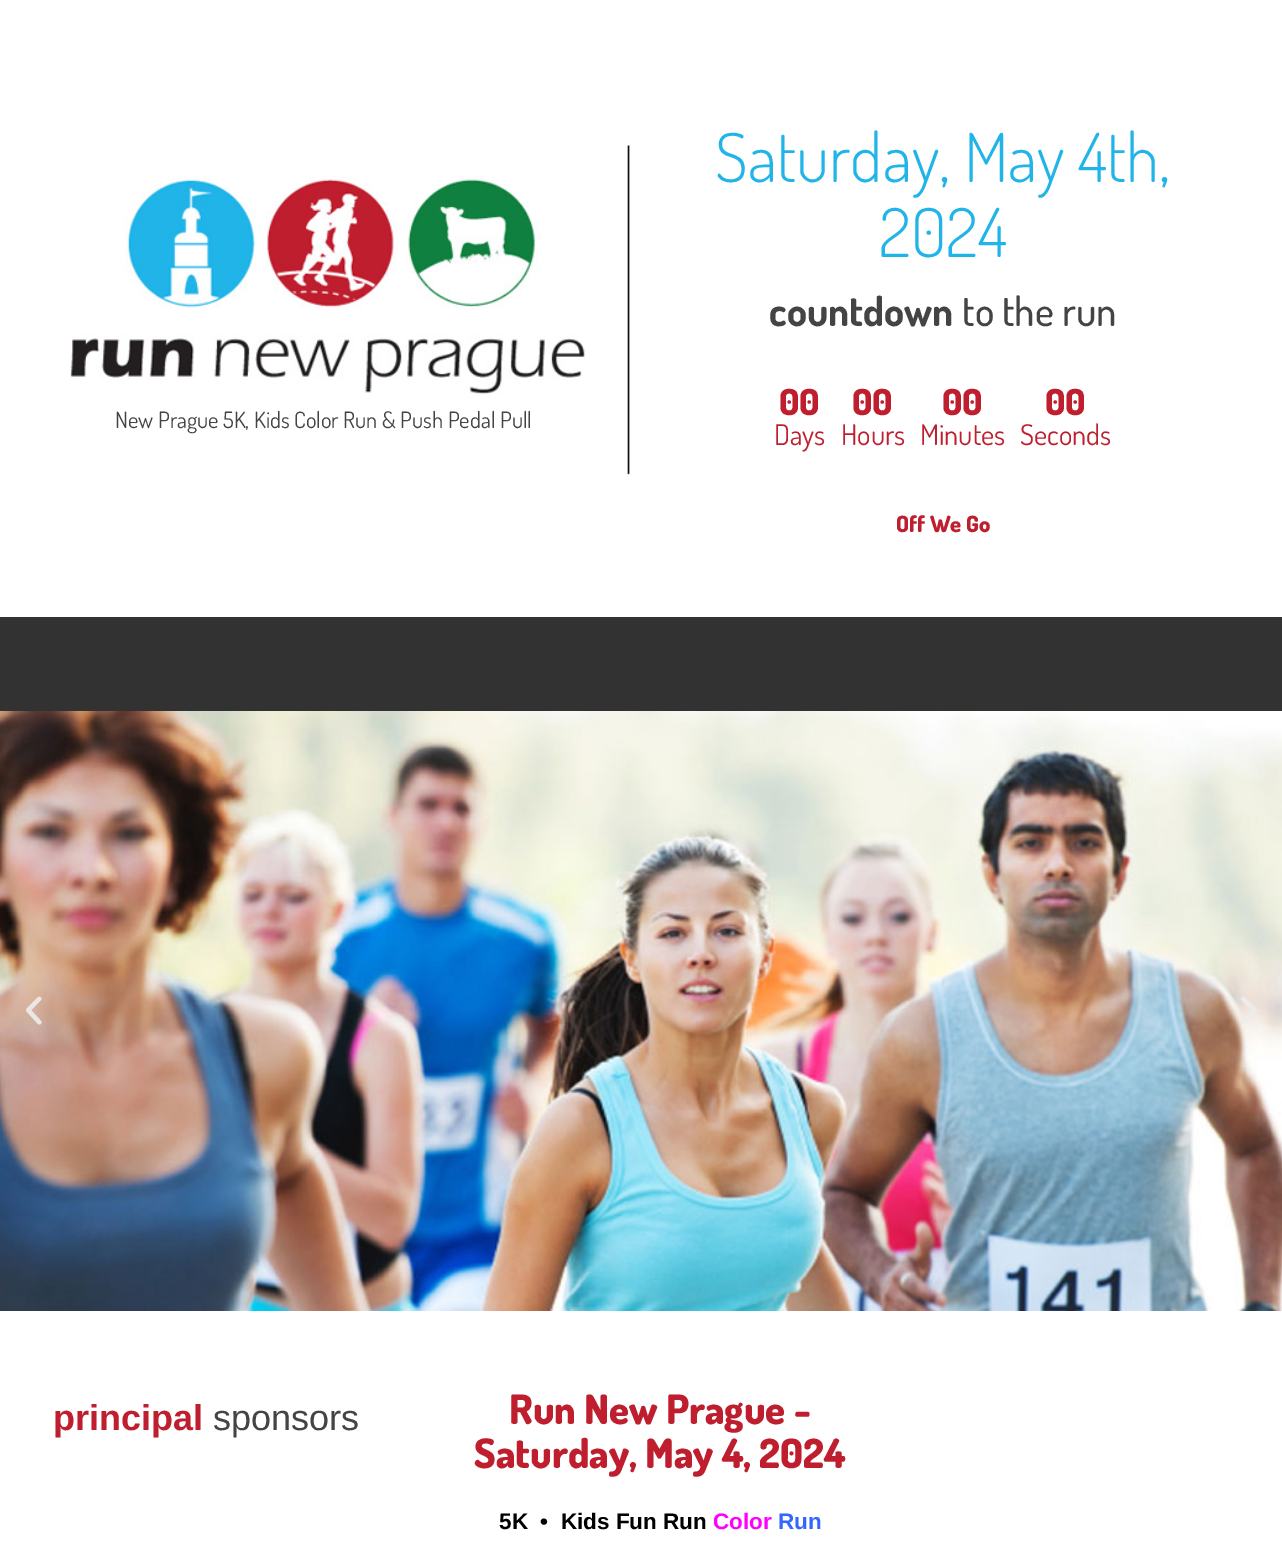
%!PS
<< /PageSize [1282 1556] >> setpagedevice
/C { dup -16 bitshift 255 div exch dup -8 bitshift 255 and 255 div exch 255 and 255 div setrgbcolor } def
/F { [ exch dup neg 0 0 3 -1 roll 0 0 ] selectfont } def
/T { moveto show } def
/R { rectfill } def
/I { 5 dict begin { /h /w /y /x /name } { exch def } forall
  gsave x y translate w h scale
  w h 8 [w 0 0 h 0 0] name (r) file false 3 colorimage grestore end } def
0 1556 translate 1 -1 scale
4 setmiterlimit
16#FFFFFF C
0 0 1282 1556 R
(1.rgb) 70 175 515 219 I
/Dosis-Regular 22.5 F
16#444444 C
(New Prague 5K, Kids Color Run & Push Pedal Pull) 115 428 T
(2.rgb) 627 145 3 330 I
/Dosis-Light 67.5 F
16#21B4E8 C
(Saturday, May 4th,) 715 182 T
(2024) 879 257 T
/Dosis-Bold 40.5 F
16#444444 C
(countdown) 769 326 T
/Dosis-Medium 40.5 F
(to the run) 962 326 T
/Dosis-ExtraBold 36 F
16#BF1E2E C
(00) 779 415 T
/Dosis-Regular 28.5 F
(Days) 774 445 T
/Dosis-ExtraBold 36 F
(00) 852 415 T
/Dosis-Regular 28.5 F
(Hours) 841 445 T
/Dosis-ExtraBold 36 F
(00) 942 415 T
/Dosis-Regular 28.5 F
(Minutes) 920 445 T
/Dosis-ExtraBold 36 F
(00) 1045 415 T
/Dosis-Regular 28.5 F
(Seconds) 1020 445 T
/Dosis-ExtraBold 22.5 F
(Off We Go) 896 532 T
16#323232 C
0 617 1282 94 R
(3.rgb) 0 711 1282 600 I
(4.rgb) 26 996 16 29 I
(5.rgb) 1241 996 16 29 I
/LiberationSans-Bold 36 F
16#BF1E2E C
(principal) 53 1430 T
/LiberationSans-Regular 36 F
16#444444 C
(sponsors) 213 1430 T
/Dosis-ExtraBold 40.5 F
16#BF1E2E C
(Run New Prague -) 509 1424 T
(Saturday, May 4, 2024) 474 1468 T
/LiberationSans-Bold 22.5 F
16#000000 C
(5K  •  Kids Fun Run) 499 1529 T
16#FF00FF C
(Color) 713 1529 T
16#3366FF C
(Run) 778 1529 T
showpage
